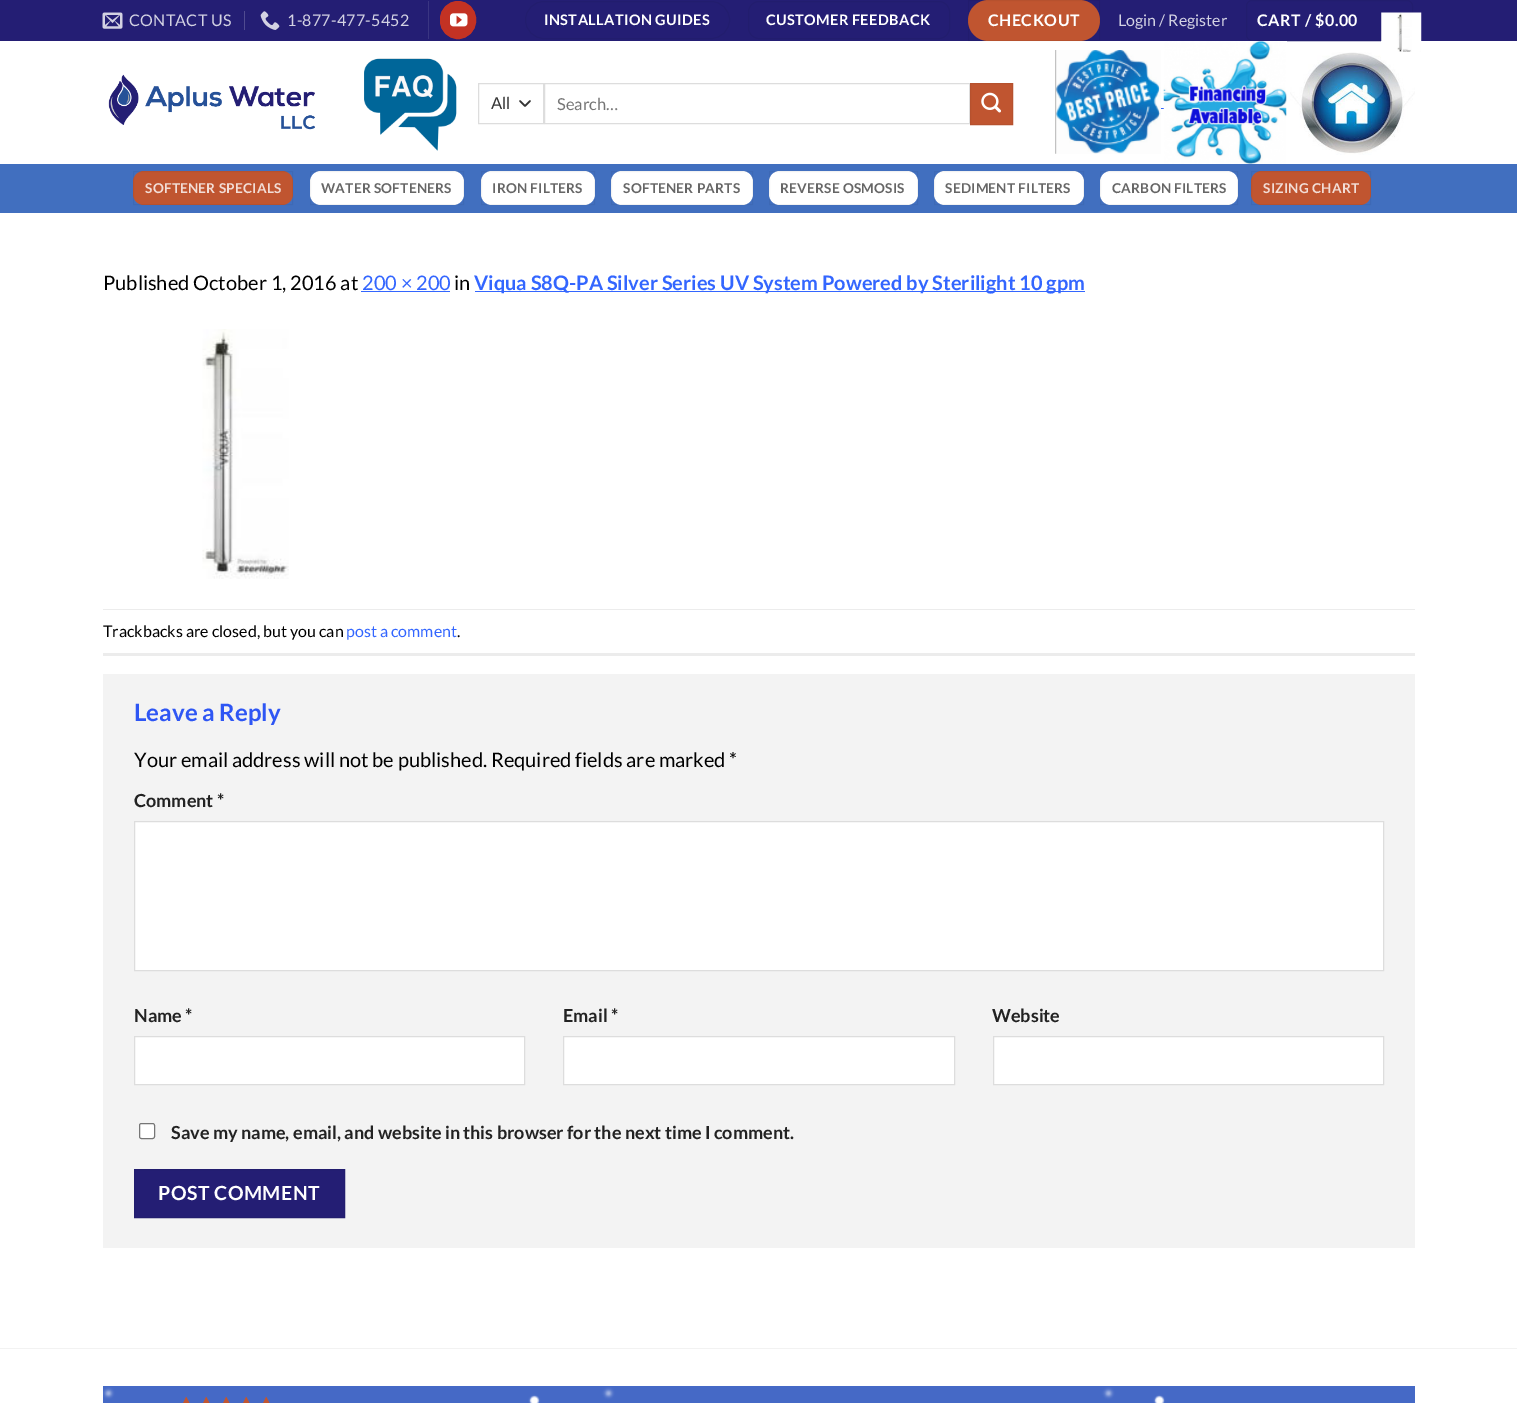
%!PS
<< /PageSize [1517 1403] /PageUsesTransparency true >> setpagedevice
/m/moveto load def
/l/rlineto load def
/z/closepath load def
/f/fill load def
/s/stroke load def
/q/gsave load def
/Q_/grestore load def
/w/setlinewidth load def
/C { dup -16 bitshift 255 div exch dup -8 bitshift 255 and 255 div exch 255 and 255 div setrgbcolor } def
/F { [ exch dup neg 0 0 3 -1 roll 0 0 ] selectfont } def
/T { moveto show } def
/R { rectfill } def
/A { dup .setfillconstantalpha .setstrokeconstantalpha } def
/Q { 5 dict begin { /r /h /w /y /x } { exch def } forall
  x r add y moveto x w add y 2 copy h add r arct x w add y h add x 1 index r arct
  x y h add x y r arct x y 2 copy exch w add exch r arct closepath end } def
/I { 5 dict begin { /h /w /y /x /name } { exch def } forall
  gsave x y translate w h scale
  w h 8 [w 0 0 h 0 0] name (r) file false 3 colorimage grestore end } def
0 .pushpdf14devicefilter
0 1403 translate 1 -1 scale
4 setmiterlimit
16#FFFFFF C
0 0 1517 1403 R
16#241E74 C
0 0 1517 41 R
(1.rgb) 102 12 21 17 I
/Lato-Regular 16 F
16#D3D2E3 C
129 26 m .25 0 (CONTACT US) ashow
16#504B90 C
244 11 1 19 R
(2.rgb) 260 11 20 19 I
16#D3D2E3 C
287 26 m .25 0 (1-877-477-5452) ashow
16#3A3582 C
428 1 1 38 R
16#C33223 C
440.5 1.5 35 37 17.5 Q q f Q_
s
(3.rgb) 450 13 18 14 I
16#221D6E C
525.5 1.5 204 37 18.5 Q s
/Lato-Bold 14.5 F
16#FFFFFF C
544 25 m .4 0 (INSTALLATION GUIDES) ashow
16#221D6E C
748.5 1.5 201 37 10.5 Q s
16#FFFFFF C
766 25 m .4 0 (CUSTOMER FEEDBACK) ashow
16#C05530 C
968 0 132 41 20.5 Q f
0.05 A
16#000000 C
968.5 .5 131 40 rectstroke
/Lato-Bold 16 F
1 A
16#FFFFFF C
988 26 m .5 0 (CHECKOUT) ashow
/Lato-Regular 16 F
16#D3D2E3 C
(Login / Register) 1118 26 T
16#221D6E C
1246.5 .5 166 40 5.5 Q s
/Lato-Bold 16 F
16#FFFFFF C
1257 26 m .5 0 (CART / $0.00) ashow
(4.rgb) 1381 12 41 40 I
(5.rgb) 108 74 207 56 I
(6.rgb) 364 58 93 93 I
16#333333 C
1.7 w
1 setlinecap
1 setlinejoin
520 101 m 5 5 l 5 -5 l s
16#DDDDDD C
1 w
0 setlinecap
0 setlinejoin
478.5 83.5 65 40 rectstroke
/Lato-Regular 16.5 F
16#333333 C
(All) 491 109 T
16#DDDDDD C
544.5 83.5 425 40 rectstroke
16#757575 C
(Search…) 557 110 T
16#C05530 C
970.5 83.5 m 42 0 l 0 41 l -42 0 l z q f Q_
16#B6512E C
s
(7.rgb) 981 92 20 21 I
(8.rgb) 1055 50 106 104 I
16#3366FF C
1161 108 3 1 R
(9.rgb) 1163 41 124 123 I
(10.rgb) 1290 52 125 103 I
16#416FBF C
0 164 1517 49 R
16#C05530 C
133 171 160 34 11 Q f
0.05 A
16#000000 C
133.5 171.5 159 33 rectstroke
/Lato-Bold 13.6 F
1 A
16#F2DDD6 C
145 193 m .25 0 (SOFTENER SPECIALS) ashow
16#FFFFFF C
310 171 154 34 11 Q f
0.05 A
16#000000 C
310.5 171.5 153 33 rectstroke
1 A
16#666666 C
321 193 m .25 0 (WATER SOFTENERS) ashow
16#FFFFFF C
481 171 114 34 11 Q f
0.05 A
16#000000 C
481.5 171.5 113 33 rectstroke
1 A
16#666666 C
492 193 m .25 0 (IRON FILTERS) ashow
16#FFFFFF C
611 171 142 34 11 Q f
0.05 A
16#000000 C
611.5 171.5 141 33 rectstroke
1 A
16#666666 C
623 193 m .25 0 (SOFTENER PARTS) ashow
16#FFFFFF C
769 171 149 34 11 Q f
0.05 A
16#000000 C
769.5 171.5 148 33 rectstroke
1 A
16#666666 C
780 193 m .25 0 (REVERSE OSMOSIS) ashow
16#FFFFFF C
934 171 150 34 11 Q f
0.05 A
16#000000 C
934.5 171.5 149 33 rectstroke
1 A
16#666666 C
945 193 m .25 0 (SEDIMENT FILTERS) ashow
16#FFFFFF C
1100 171 138 34 11 Q f
0.05 A
16#000000 C
1100.5 171.5 137 33 rectstroke
1 A
16#666666 C
1112 193 m .25 0 (CARBON FILTERS) ashow
16#C05530 C
1251 171 120 34 11 Q f
0.05 A
16#000000 C
1251.5 171.5 119 33 rectstroke
1 A
16#F2DDD6 C
1263 193 m .25 0 (SIZING CHART) ashow
/Lato-Regular 20 F
16#000000 C
(Published October 1, 2016 at) 103 290 T
16#3366FF C
(200 × 200) 362 290 T
361 291 89 1 R
16#000000 C
(in) 454 290 T
16#3366FF C
475 291 610 1 R
/Lato-Bold 20 F
(Viqua S8Q-PA Silver Series UV System Powered by Sterilight 10 gpm) 474 290 T
(11.rgb) 202 329 87 250 I
16#ECECEC C
103 609 1312 1 R
103 653 1312 3 R
/Lato-Regular 16 F
16#000000 C
(Trackbacks are closed, but you can) 103 637 T
16#3366FF C
(post a comment) 346 637 T
16#000000 C
(.) 457 637 T
16#F3F3F3 C
103 674 1312 574 R
/Lato-Bold 24 F
16#2E56F4 C
(Leave a Reply) 134 721 T
/Lato-Regular 20 F
16#000000 C
(Your email address will not be published. Required fields are marked *) 134 767 T
/Lato-Bold 18 F
16#222222 C
(Comment *) 134 807 T
16#FFFFFF C
134.5 821.5 m 1249 0 l 0 149 l -1249 0 l z q f Q_
16#DDDDDD C
s
16#222222 C
(Name *) 134 1022 T
16#FFFFFF C
134.5 1036.5 m 390 0 l 0 48 l -390 0 l z q f Q_
16#DDDDDD C
s
16#222222 C
(Email *) 563 1022 T
16#FFFFFF C
563.5 1036.5 m 391 0 l 0 48 l -391 0 l z q f Q_
16#DDDDDD C
s
16#222222 C
(Website) 992 1022 T
16#FFFFFF C
993.5 1036.5 m 390 0 l 0 48 l -390 0 l z q f Q_
16#DDDDDD C
s
16#FFFFFF C
139.5 1123.5 15 15 2 Q q f Q_
16#767676 C
s
16#222222 C
(Save my name, email, and website in this browser for the next time I comment.) 171 1139 T
16#241E74 C
134.5 1169.5 m 210 0 l 0 48 l -210 0 l z q f Q_
16#221D6E C
s
/Lato-Bold 19.5 F
16#FFFFFF C
158 1200 m .5 0 (POST COMMENT) ashow
16#F2F2F2 C
0 1348 1517 1 R
16#4569C6 C
103 1386 1312 17 R
(12.rgb) 103 1387 1062 16 I
(13.rgb) 183 1396 87 7 I
(14.rgb) 183 1396 87 7 I
.poppdf14devicefilter showpage
